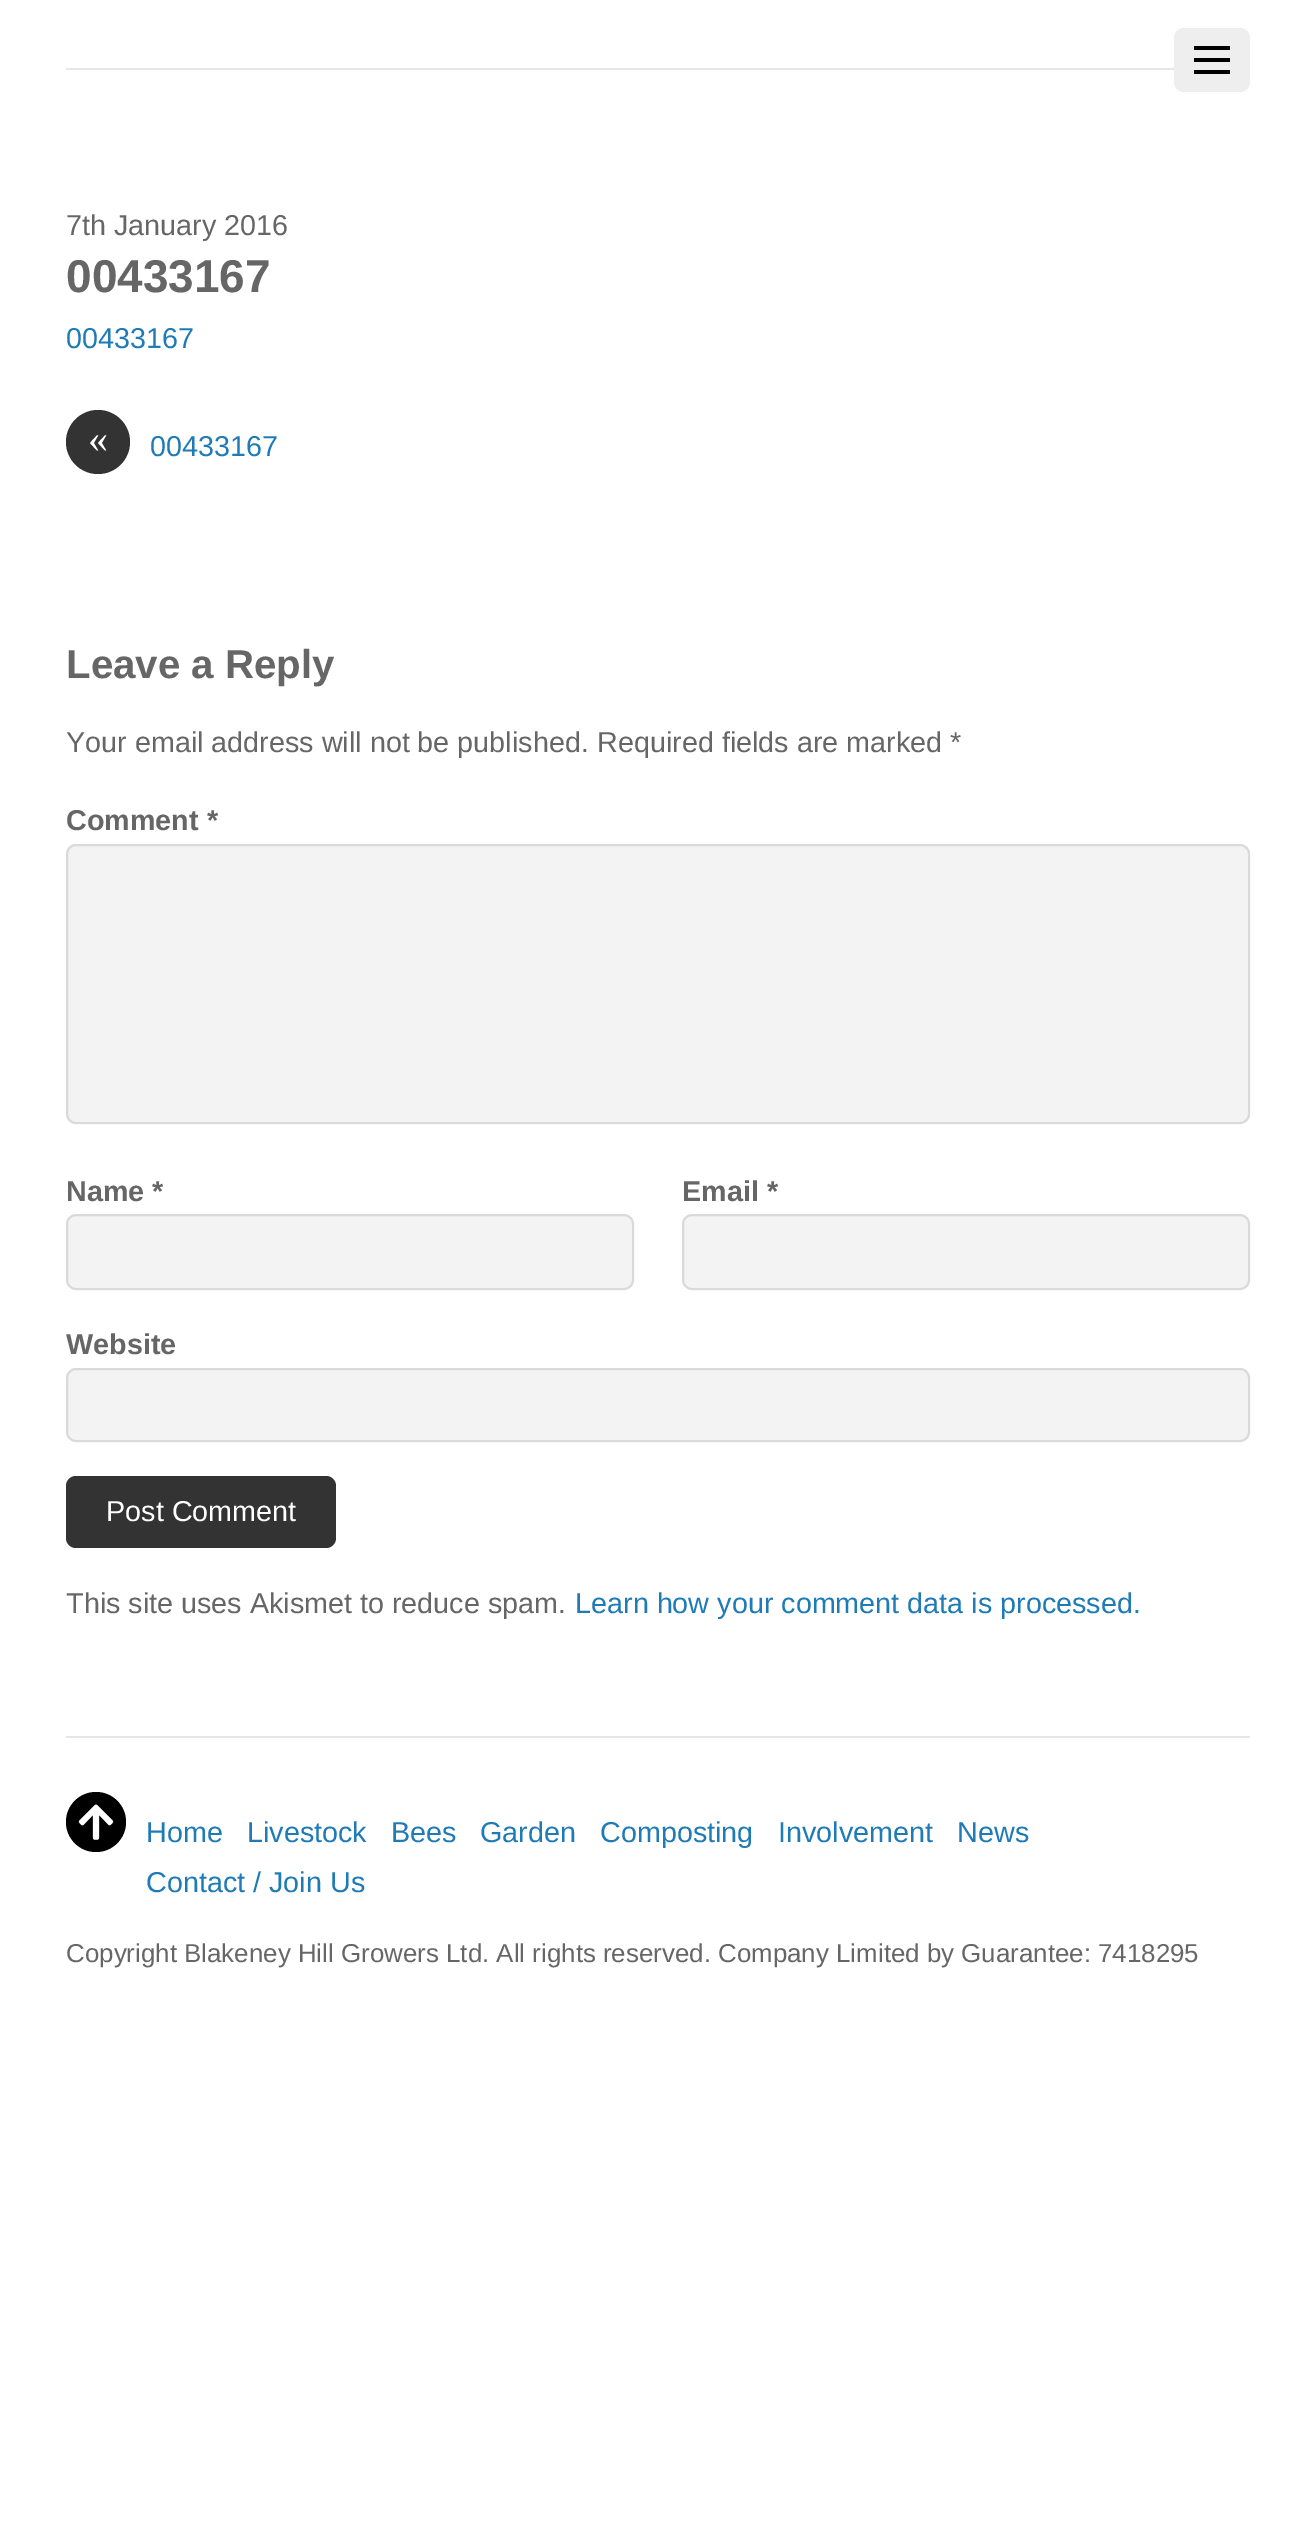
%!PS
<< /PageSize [1316 2536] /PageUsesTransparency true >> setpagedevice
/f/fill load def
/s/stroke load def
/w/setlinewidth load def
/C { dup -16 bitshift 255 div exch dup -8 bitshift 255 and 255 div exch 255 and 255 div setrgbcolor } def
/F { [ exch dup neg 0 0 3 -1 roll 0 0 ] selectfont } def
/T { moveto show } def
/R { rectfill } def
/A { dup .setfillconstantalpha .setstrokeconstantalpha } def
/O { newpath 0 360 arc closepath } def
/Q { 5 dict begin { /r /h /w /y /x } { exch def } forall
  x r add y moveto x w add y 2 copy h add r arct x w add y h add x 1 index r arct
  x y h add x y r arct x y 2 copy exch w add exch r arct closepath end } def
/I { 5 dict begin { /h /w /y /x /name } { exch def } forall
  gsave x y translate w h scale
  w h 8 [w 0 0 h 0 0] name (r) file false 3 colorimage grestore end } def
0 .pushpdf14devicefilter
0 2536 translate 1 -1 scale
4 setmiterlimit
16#FFFFFF C
0 0 1316 2536 R
16#E6E6E6 C
66 68 1108 2 R
16#EEEEEE C
1174 28 76 64 10 Q f
16#000000 C
1194 70 36 4 R
1194 46 36 4 R
1194 58 36 4 R
/LiberationSans-Regular 28.75 F
16#666666 C
(7th January 2016) 66 235 T
/LiberationSans-Bold 46 F
(00433167) 66 292 T
/LiberationSans-Regular 28.75 F
16#1F7BB6 C
(00433167) 66 348 T
16#333333 C
98 442 32 O f
/LiberationSerif-Regular 40 F
16#FFFFFF C
(«) 88 452 T
/LiberationSans-Regular 28.75 F
16#1F7BB6 C
(00433167) 150 456 T
/LiberationSans-Bold 40.25 F
16#666666 C
(Leave a Reply) 66 678 T
/LiberationSans-Regular 28.75 F
(Your email address will not be published.) 66 752 T
(Required fields are marked *) 597 752 T
/LiberationSans-Bold 28.75 F
(Comment *) 66 830 T
16#F3F3F3 C
66 844 1184 280 10 Q f
0.1 A
16#000000 C
2 w
67 845 1182 278 9 Q s
1 A
16#666666 C
(Name *) 66 1201 T
16#F3F3F3 C
66 1214 568 76 10 Q f
0.1 A
16#000000 C
67 1215 566 74 9 Q s
1 A
16#666666 C
(Email *) 682 1201 T
16#F3F3F3 C
682 1214 568 76 10 Q f
0.1 A
16#000000 C
683 1215 566 74 9 Q s
1 A
16#666666 C
(Website) 66 1354 T
16#F3F3F3 C
66 1368 1184 74 10 Q f
0.1 A
16#000000 C
67 1369 1182 72 9 Q s
1 A
16#333333 C
66 1476 270 72 10 Q f
/LiberationSans-Regular 28.75 F
16#FFFFFF C
(Post Comment) 106 1521 T
16#666666 C
(This site uses Akismet to reduce spam.) 66 1613 T
16#1F7BB6 C
(Learn how your comment data is processed.) 575 1613 T
16#E6E6E6 C
66 1736 1184 2 R
16#000000 C
96 1822 30 O f
(1.rgb) 78 1804 36 36 I
16#1F7BB6 C
(Home) 146 1842 T
(Livestock) 247 1842 T
(Bees) 391 1842 T
(Garden) 480 1842 T
(Composting) 600 1842 T
(Involvement) 778 1842 T
(News) 957 1842 T
(Contact / Join Us) 146 1892 T
/LiberationSans-Regular 25.9 F
16#666666 C
(Copyright Blakeney Hill Growers Ltd. All rights reserved. Company Limited by Guarantee: 7418295) 66 1962 T
.poppdf14devicefilter showpage
